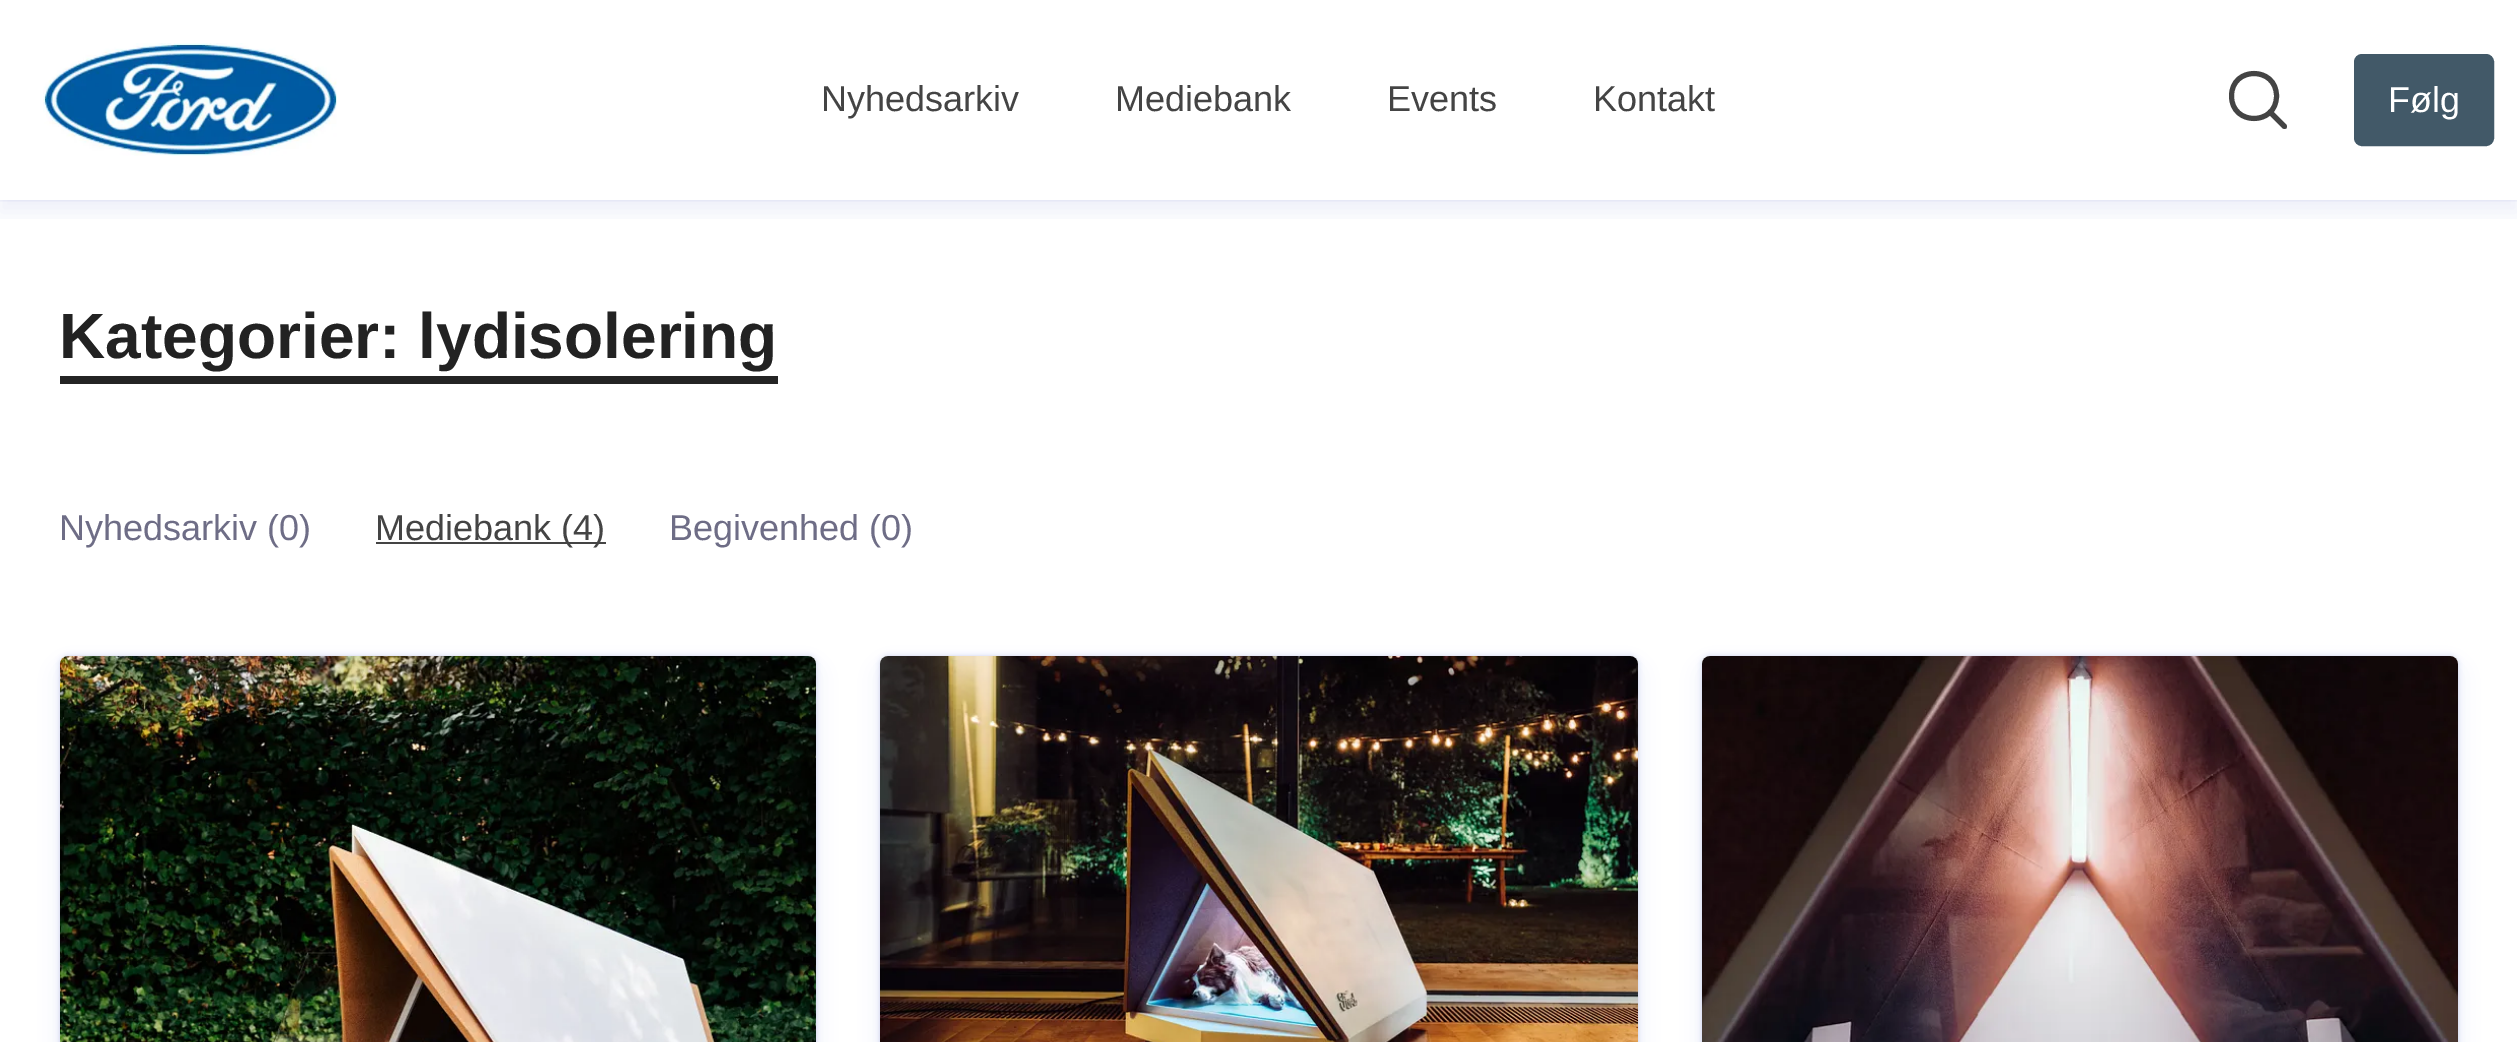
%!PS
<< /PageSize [2517 1042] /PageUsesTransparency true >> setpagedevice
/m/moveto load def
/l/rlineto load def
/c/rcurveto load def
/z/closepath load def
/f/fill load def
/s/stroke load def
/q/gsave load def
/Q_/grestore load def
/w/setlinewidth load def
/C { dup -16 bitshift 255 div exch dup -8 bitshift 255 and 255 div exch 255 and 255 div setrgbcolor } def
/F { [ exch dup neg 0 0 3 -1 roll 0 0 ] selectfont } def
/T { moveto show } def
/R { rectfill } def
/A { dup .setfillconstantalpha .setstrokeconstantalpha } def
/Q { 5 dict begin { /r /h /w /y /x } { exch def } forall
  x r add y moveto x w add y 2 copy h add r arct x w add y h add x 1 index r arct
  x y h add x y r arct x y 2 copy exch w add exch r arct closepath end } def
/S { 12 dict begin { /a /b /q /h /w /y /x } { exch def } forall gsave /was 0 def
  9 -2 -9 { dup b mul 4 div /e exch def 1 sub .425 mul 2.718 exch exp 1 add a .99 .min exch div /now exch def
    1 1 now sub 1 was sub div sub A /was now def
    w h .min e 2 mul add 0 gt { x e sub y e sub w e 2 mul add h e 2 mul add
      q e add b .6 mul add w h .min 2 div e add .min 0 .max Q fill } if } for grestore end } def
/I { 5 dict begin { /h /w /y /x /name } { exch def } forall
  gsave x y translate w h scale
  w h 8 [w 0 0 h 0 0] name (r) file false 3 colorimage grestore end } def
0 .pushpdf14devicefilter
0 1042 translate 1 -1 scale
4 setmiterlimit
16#FFFFFF C
0 0 2517 1042 R
q
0 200 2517 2 rectclip
16#3149A4 C
0 0 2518 200 0 2 .14 S
Q_
q
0 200 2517 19 rectclip
16#3149A4 C
0 12 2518 200 0 10 .08 S
Q_
(1.rgb) 43 43 294 113 I
/LiberationSans-Regular 36 F
16#444444 C
(Nyhedsarkiv) 821 111 T
(Mediebank) 1115 111 T
(Events) 1387 111 T
(Kontakt) 1593 111 T
5 w
1 setlinecap
2276.5 96 m 0 30 -45 30 -45 0 c 0 -30 45 -30 45 0 c z 2284.5 126.5 m -14.5 -14.5 l s
16#425968 C
2355 55 138 90 7 Q q f Q_
2 w
0 setlinecap
s
16#FFFFFF C
(Følg) 2388 112 T
16#242424 C
60 376 718 8 R
/LiberationSans-Bold 64 F
16#222222 C
(Kategorier: lydisolering) 59 358 T
/LiberationSans-Regular 36 F
16#6E6D86 C
(Nyhedsarkiv \(0\)) 59 540 T
16#444444 C
376 542 230 2 R
(Mediebank \(4\)) 375 540 T
16#6E6D86 C
(Begivenhed \(0\)) 669 540 T
16#3149A4 C
60 656 756 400 8 2 .14 S
60 656 756 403 8 3 .1 S
60 668 756 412 8 10 .08 S
(2.rgb) 60 656 756 8 I
(3.rgb) 60 656 756 386 I
880 656 758 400 8 2 .14 S
880 656 758 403 8 3 .1 S
880 668 758 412 8 10 .08 S
(4.rgb) 880 656 758 8 I
(5.rgb) 880 656 758 386 I
1702 656 756 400 8 2 .14 S
1702 656 756 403 8 3 .1 S
1702 668 756 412 8 10 .08 S
(6.rgb) 1702 656 756 8 I
(7.rgb) 1702 656 756 386 I
.poppdf14devicefilter showpage
